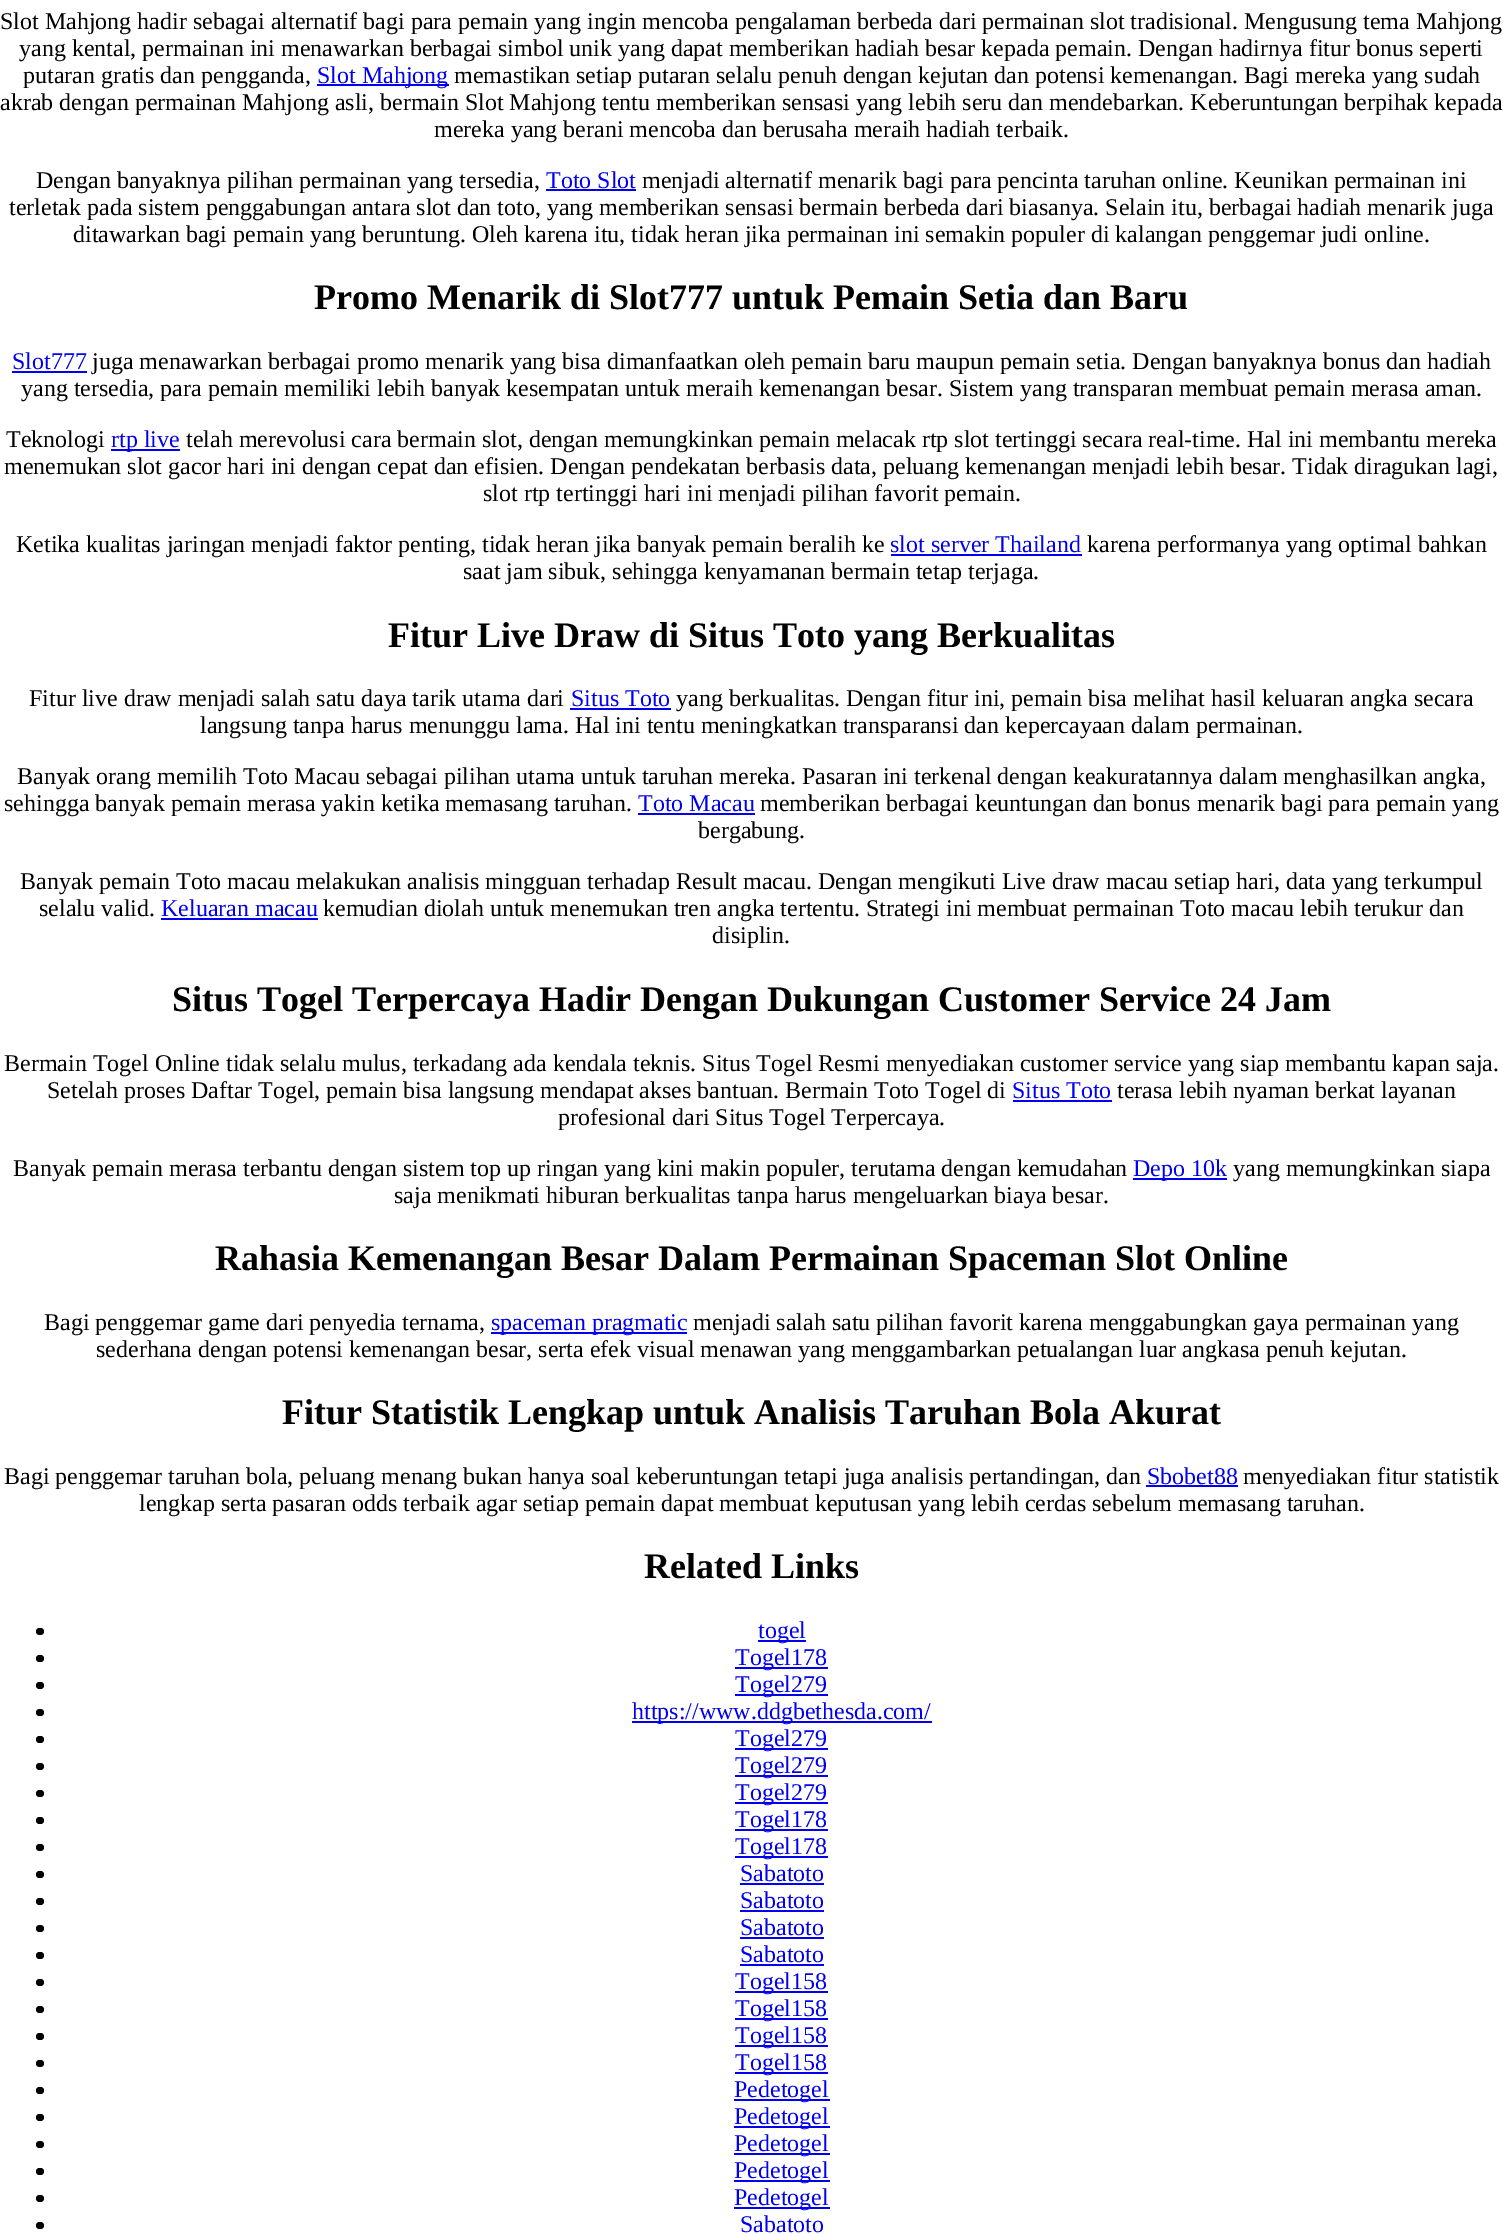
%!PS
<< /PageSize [1503 2234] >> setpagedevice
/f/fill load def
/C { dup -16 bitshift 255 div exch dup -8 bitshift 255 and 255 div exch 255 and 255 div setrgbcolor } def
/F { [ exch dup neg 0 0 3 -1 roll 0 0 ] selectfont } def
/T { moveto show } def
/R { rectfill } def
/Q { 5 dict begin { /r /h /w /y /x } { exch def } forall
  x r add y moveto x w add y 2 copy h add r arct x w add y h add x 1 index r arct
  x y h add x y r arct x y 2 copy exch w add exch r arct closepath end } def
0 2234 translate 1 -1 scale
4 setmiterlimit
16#FFFFFF C
0 0 1503 2234 R
/LiberationSerif-Regular 24 F
16#000000 C
(Slot Mahjong hadir sebagai alternatif bagi para pemain yang ingin mencoba pengalaman berbeda dari permainan slot tradisional. Mengusung tema Mahjong) 0 29 T
(yang kental, permainan ini menawarkan berbagai simbol unik yang dapat memberikan hadiah besar kepada pemain. Dengan hadirnya fitur bonus seperti) 19 56 T
(putaran gratis dan pengganda,) 23 83 T
16#0000EE C
317 84 132 2 R
(Slot Mahjong) 317 83 T
16#000000 C
(memastikan setiap putaran selalu penuh dengan kejutan dan potensi kemenangan. Bagi mereka yang sudah) 454 83 T
(akrab dengan permainan Mahjong asli, bermain Slot Mahjong tentu memberikan sensasi yang lebih seru dan mendebarkan. Keberuntungan berpihak kepada) 0 110 T
(mereka yang berani mencoba dan berusaha meraih hadiah terbaik.) 434 137 T
(Dengan banyaknya pilihan permainan yang tersedia,) 36 188 T
16#0000EE C
(Toto Slot) 546 188 T
546 189 90 2 R
16#000000 C
(menjadi alternatif menarik bagi para pencinta taruhan online. Keunikan permainan ini) 642 188 T
(terletak pada sistem penggabungan antara slot dan toto, yang memberikan sensasi bermain berbeda dari biasanya. Selain itu, berbagai hadiah menarik juga) 9 215 T
(ditawarkan bagi pemain yang beruntung. Oleh karena itu, tidak heran jika permainan ini semakin populer di kalangan penggemar judi online.) 73 242 T
/LiberationSerif-Bold 36 F
(Promo Menarik di Slot777 untuk Pemain Setia dan Baru) 314 309 T
/LiberationSerif-Regular 24 F
16#0000EE C
(Slot777) 12 369 T
12 371 75 2 R
16#000000 C
(juga menawarkan berbagai promo menarik yang bisa dimanfaatkan oleh pemain baru maupun pemain setia. Dengan banyaknya bonus dan hadiah) 92 369 T
(yang tersedia, para pemain memiliki lebih banyak kesempatan untuk meraih kemenangan besar. Sistem yang transparan membuat pemain merasa aman.) 21 396 T
(Teknologi) 6 447 T
16#0000EE C
111 449 69 2 R
(rtp live) 111 447 T
16#000000 C
(telah merevolusi cara bermain slot, dengan memungkinkan pemain melacak rtp slot tertinggi secara real-time. Hal ini membantu mereka) 186 447 T
(menemukan slot gacor hari ini dengan cepat dan efisien. Dengan pendekatan berbasis data, peluang kemenangan menjadi lebih besar. Tidak diragukan lagi,) 4 474 T
(slot rtp tertinggi hari ini menjadi pilihan favorit pemain.) 483 501 T
(Ketika kualitas jaringan menjadi faktor penting, tidak heran jika banyak pemain beralih ke) 16 552 T
16#0000EE C
(slot server Thailand) 890 552 T
891 554 191 2 R
16#000000 C
(karena performanya yang optimal bahkan) 1087 552 T
(saat jam sibuk, sehingga kenyamanan bermain tetap terjaga.) 463 579 T
/LiberationSerif-Bold 36 F
(Fitur Live Draw di Situs Toto yang Berkualitas) 388 647 T
/LiberationSerif-Regular 24 F
(Fitur live draw menjadi salah satu daya tarik utama dari) 29 706 T
16#0000EE C
(Situs Toto) 571 706 T
570 708 101 2 R
16#000000 C
(yang berkualitas. Dengan fitur ini, pemain bisa melihat hasil keluaran angka secara) 676 706 T
(langsung tanpa harus menunggu lama. Hal ini tentu meningkatkan transparansi dan kepercayaan dalam permainan.) 200 733 T
(Banyak orang memilih Toto Macau sebagai pilihan utama untuk taruhan mereka. Pasaran ini terkenal dengan keakuratannya dalam menghasilkan angka,) 17 784 T
(sehingga banyak pemain merasa yakin ketika memasang taruhan.) 4 811 T
16#0000EE C
(Toto Macau) 638 811 T
638 813 117 2 R
16#000000 C
(memberikan berbagai keuntungan dan bonus menarik bagi para pemain yang) 760 811 T
(bergabung.) 698 838 T
(Banyak pemain Toto macau melakukan analisis mingguan terhadap Result macau. Dengan mengikuti Live draw macau setiap hari, data yang terkumpul) 20 889 T
(selalu valid.) 39 916 T
16#0000EE C
(Keluaran macau) 161 916 T
161 918 157 2 R
16#000000 C
(kemudian diolah untuk menemukan tren angka tertentu. Strategi ini membuat permainan Toto macau lebih terukur dan) 323 916 T
(disiplin.) 712 943 T
/LiberationSerif-Bold 36 F
(Situs Togel Terpercaya Hadir Dengan Dukungan Customer Service 24 Jam) 172 1011 T
/LiberationSerif-Regular 24 F
(Bermain Togel Online tidak selalu mulus, terkadang ada kendala teknis. Situs Togel Resmi menyediakan customer service yang siap membantu kapan saja.) 4 1071 T
(Setelah proses Daftar Togel, pemain bisa langsung mendapat akses bantuan. Bermain Toto Togel di) 47 1098 T
16#0000EE C
(Situs Toto) 1012 1098 T
1013 1100 99 2 R
16#000000 C
(terasa lebih nyaman berkat layanan) 1117 1098 T
(profesional dari Situs Togel Terpercaya.) 558 1125 T
(Banyak pemain merasa terbantu dengan sistem top up ringan yang kini makin populer, terutama dengan kemudahan) 13 1176 T
16#0000EE C
1133 1178 94 2 R
(Depo 10k) 1133 1176 T
16#000000 C
(yang memungkinkan siapa) 1233 1176 T
(saja menikmati hiburan berkualitas tanpa harus mengeluarkan biaya besar.) 394 1203 T
/LiberationSerif-Bold 36 F
(Rahasia Kemenangan Besar Dalam Permainan Spaceman Slot Online) 215 1270 T
/LiberationSerif-Regular 24 F
(Bagi penggemar game dari penyedia ternama,) 44 1330 T
16#0000EE C
491 1332 196 2 R
(spaceman pragmatic) 491 1330 T
16#000000 C
(menjadi salah satu pilihan favorit karena menggabungkan gaya permainan yang) 693 1330 T
(sederhana dengan potensi kemenangan besar, serta efek visual menawan yang menggambarkan petualangan luar angkasa penuh kejutan.) 96 1357 T
/LiberationSerif-Bold 36 F
(Fitur Statistik Lengkap untuk Analisis Taruhan Bola Akurat) 282 1424 T
/LiberationSerif-Regular 24 F
(Bagi penggemar taruhan bola, peluang menang bukan hanya soal keberuntungan tetapi juga analisis pertandingan, dan) 4 1484 T
16#0000EE C
(Sbobet88) 1147 1484 T
1146 1485 92 2 R
16#000000 C
(menyediakan fitur statistik) 1243 1484 T
(lengkap serta pasaran odds terbaik agar setiap pemain dapat membuat keputusan yang lebih cerdas sebelum memasang taruhan.) 139 1511 T
/LiberationSerif-Bold 36 F
(Related Links) 644 1578 T
36 1628 8 7 3.5 Q f
16#0000EE C
758 1640 48 2 R
/LiberationSerif-Regular 24 F
(togel) 758 1638 T
16#000000 C
36 1655 8 7 3.5 Q f
16#0000EE C
735 1667 93 2 R
(Togel178) 735 1665 T
16#000000 C
36 1682 8 7 3.5 Q f
16#0000EE C
735 1694 93 2 R
(Togel279) 735 1692 T
16#000000 C
36 1709 8 7 3.5 Q f
16#0000EE C
632 1721 300 2 R
(https://www.ddgbethesda.com/) 632 1719 T
16#000000 C
36 1736 8 7 3.5 Q f
16#0000EE C
735 1748 93 2 R
(Togel279) 735 1746 T
16#000000 C
36 1763 8 7 3.5 Q f
16#0000EE C
735 1775 93 2 R
(Togel279) 735 1773 T
16#000000 C
36 1790 8 7 3.5 Q f
16#0000EE C
735 1802 93 2 R
(Togel279) 735 1800 T
16#000000 C
36 1817 8 7 3.5 Q f
16#0000EE C
735 1829 93 2 R
(Togel178) 735 1827 T
16#000000 C
36 1844 8 7 3.5 Q f
16#0000EE C
735 1856 93 2 R
(Togel178) 735 1854 T
16#000000 C
36 1871 8 7 3.5 Q f
16#0000EE C
(Sabatoto) 740 1881 T
740 1883 84 2 R
16#000000 C
36 1898 8 7 3.5 Q f
16#0000EE C
(Sabatoto) 740 1908 T
740 1910 84 2 R
16#000000 C
36 1925 8 7 3.5 Q f
16#0000EE C
(Sabatoto) 740 1935 T
740 1937 84 2 R
16#000000 C
36 1952 8 7 3.5 Q f
16#0000EE C
(Sabatoto) 740 1962 T
740 1964 84 2 R
16#000000 C
36 1979 8 7 3.5 Q f
16#0000EE C
735 1991 93 2 R
(Togel158) 735 1989 T
16#000000 C
36 2006 8 7 3.5 Q f
16#0000EE C
735 2018 93 2 R
(Togel158) 735 2016 T
16#000000 C
36 2033 8 7 3.5 Q f
16#0000EE C
735 2045 93 2 R
(Togel158) 735 2043 T
16#000000 C
36 2060 8 7 3.5 Q f
16#0000EE C
735 2072 93 2 R
(Togel158) 735 2070 T
16#000000 C
36 2087 8 7 3.5 Q f
16#0000EE C
734 2099 96 2 R
(Pedetogel) 734 2097 T
16#000000 C
36 2114 8 7 3.5 Q f
16#0000EE C
734 2126 96 2 R
(Pedetogel) 734 2124 T
16#000000 C
36 2141 8 7 3.5 Q f
16#0000EE C
734 2153 96 2 R
(Pedetogel) 734 2151 T
16#000000 C
36 2168 8 7 3.5 Q f
16#0000EE C
734 2180 96 2 R
(Pedetogel) 734 2178 T
16#000000 C
36 2195 8 7 3.5 Q f
16#0000EE C
734 2207 96 2 R
(Pedetogel) 734 2205 T
16#000000 C
36 2222 8 7 3.5 Q f
16#0000EE C
(Sabatoto) 740 2232 T
showpage
